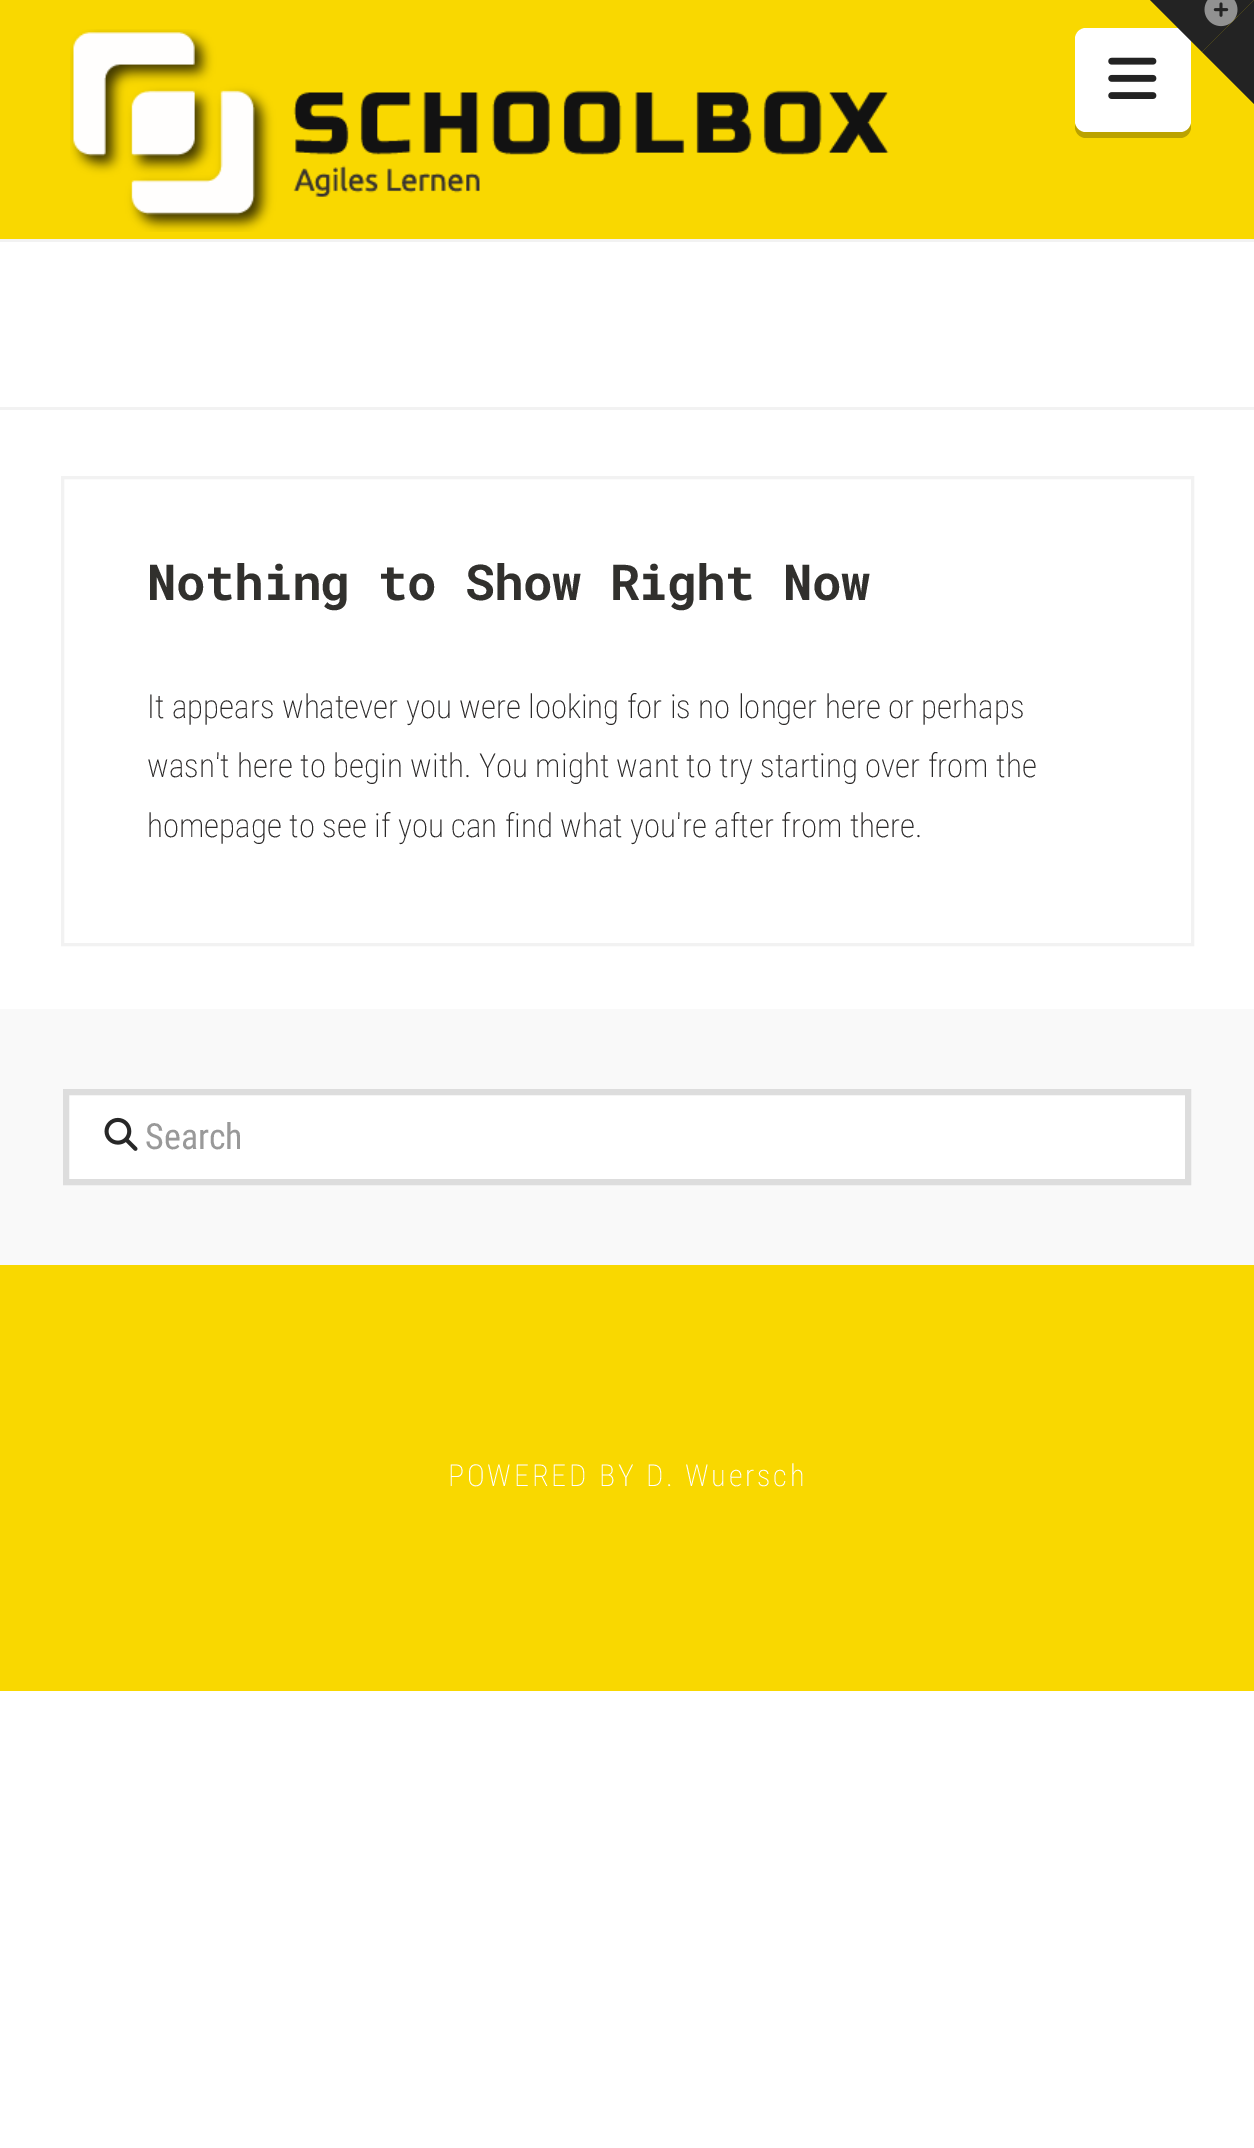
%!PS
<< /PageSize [1254 2148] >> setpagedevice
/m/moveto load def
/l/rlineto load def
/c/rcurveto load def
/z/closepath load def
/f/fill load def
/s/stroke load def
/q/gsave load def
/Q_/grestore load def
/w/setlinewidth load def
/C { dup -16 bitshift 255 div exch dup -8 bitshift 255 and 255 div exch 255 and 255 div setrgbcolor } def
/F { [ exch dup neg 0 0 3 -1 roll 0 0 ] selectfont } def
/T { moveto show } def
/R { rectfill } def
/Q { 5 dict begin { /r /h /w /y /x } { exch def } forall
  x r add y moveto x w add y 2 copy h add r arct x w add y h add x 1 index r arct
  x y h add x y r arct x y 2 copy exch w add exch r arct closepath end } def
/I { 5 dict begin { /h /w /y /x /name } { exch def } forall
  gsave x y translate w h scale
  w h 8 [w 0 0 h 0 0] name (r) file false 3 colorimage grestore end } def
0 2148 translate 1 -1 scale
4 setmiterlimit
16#FFFFFF C
0 0 1254 2148 R
16#F9D800 C
0 0 1254 239 R
16#BBA200 C
1075 42 m 0 85 l 0 6 5 11 11 11 c 94 0 l 6 0 11 -5 11 -11 c 0 -85 l 0 79 l 0 6 -5 11 -11 11 c -94 0 l -6 0 -11 -5 -11 -11 c z f
16#FFFFFF C
1075 28 116 104 11 Q f
16#232323 C
1150 0 m 104 0 l -52 52 l z f
1254 0 m 0 104 l -52 -52 l z f
(1.rgb) 1204 0 34 27 I
(2.rgb) 70 29 819 203 I
(3.rgb) 1108 57 49 42 I
16#F2F2F2 C
0 239 1254 3 R
0 407 1254 3 R
3 w
62.5 477.5 1130 467 rectstroke
/RobotoMono-Bold 49.5 F
16#31302D C
147 600 m -.8 0 (Nothing to Show Right Now) ashow
/RobotoCondensed-ExtraLight 33 F
16#2B2929 C
(It appears whatever you were looking for is no longer here or perhaps) 147 718 T
(wasn't here to begin with. You might want to try starting over from the) 147 777 T
(homepage to see if you can find what you're after from there.) 147 837 T
16#F9F9F9 C
0 1009 1254 256 R
16#FFFFFF C
66 1092 m 1122 0 l 0 90 l -1122 0 l z q f Q_
16#DDDDDD C
6 w
s
(4.rgb) 104 1117 34 34 I
/RobotoCondensed-Regular 36 F
16#999999 C
(Search) 145 1149 T
16#F9D800 C
0 1265 1254 426 R
/RobotoCondensed-ExtraLight 30.25 F
16#FFFFFF C
448 1486 m 2.75 0 (POWERED BY D. Wuersch) ashow
showpage
